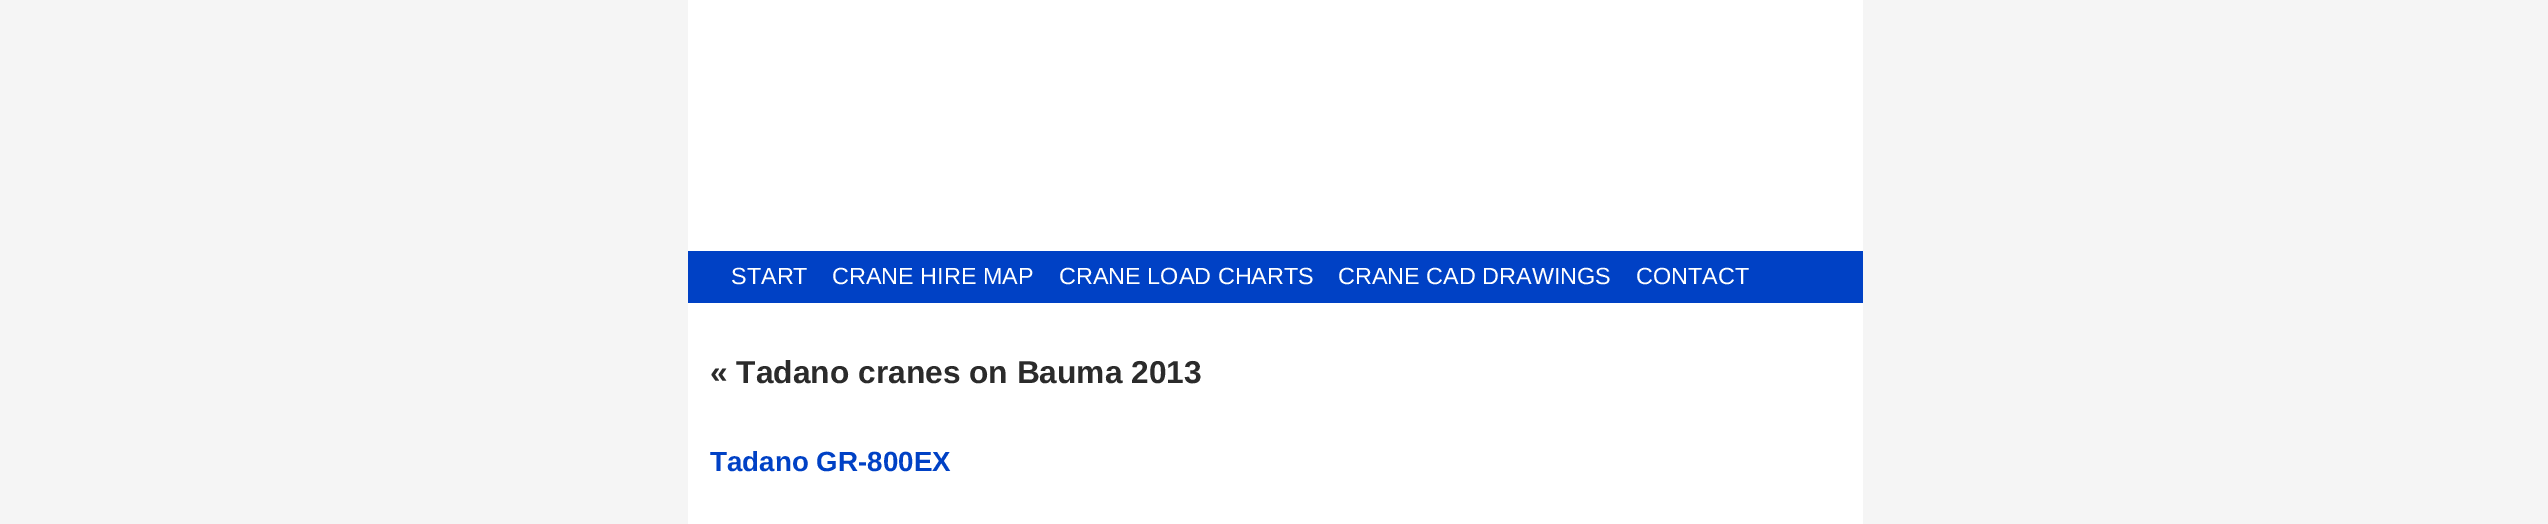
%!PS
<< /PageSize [2548 524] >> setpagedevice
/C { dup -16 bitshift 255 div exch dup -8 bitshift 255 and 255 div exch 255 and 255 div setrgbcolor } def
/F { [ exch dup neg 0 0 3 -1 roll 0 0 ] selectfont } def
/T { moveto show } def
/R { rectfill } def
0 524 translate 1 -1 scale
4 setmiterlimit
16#F5F5F5 C
0 0 2548 524 R
16#FFFFFF C
688 0 1175 524 R
16#0041C5 C
688 251 1175 52 R
/LiberationSans-Regular 23.4 F
16#FFFFFF C
(START) 731 284 T
(CRANE HIRE MAP) 832 284 T
(CRANE LOAD CHARTS) 1059 284 T
(CRANE CAD DRAWINGS) 1338 284 T
(CONTACT) 1636 284 T
/LiberationSans-Bold 31.7 F
16#2B2B2B C
(« Tadano cranes on Bauma 2013) 710 383 T
/LiberationSans-Bold 27.75 F
16#0041C5 C
(Tadano GR-800EX) 710 471 T
showpage
